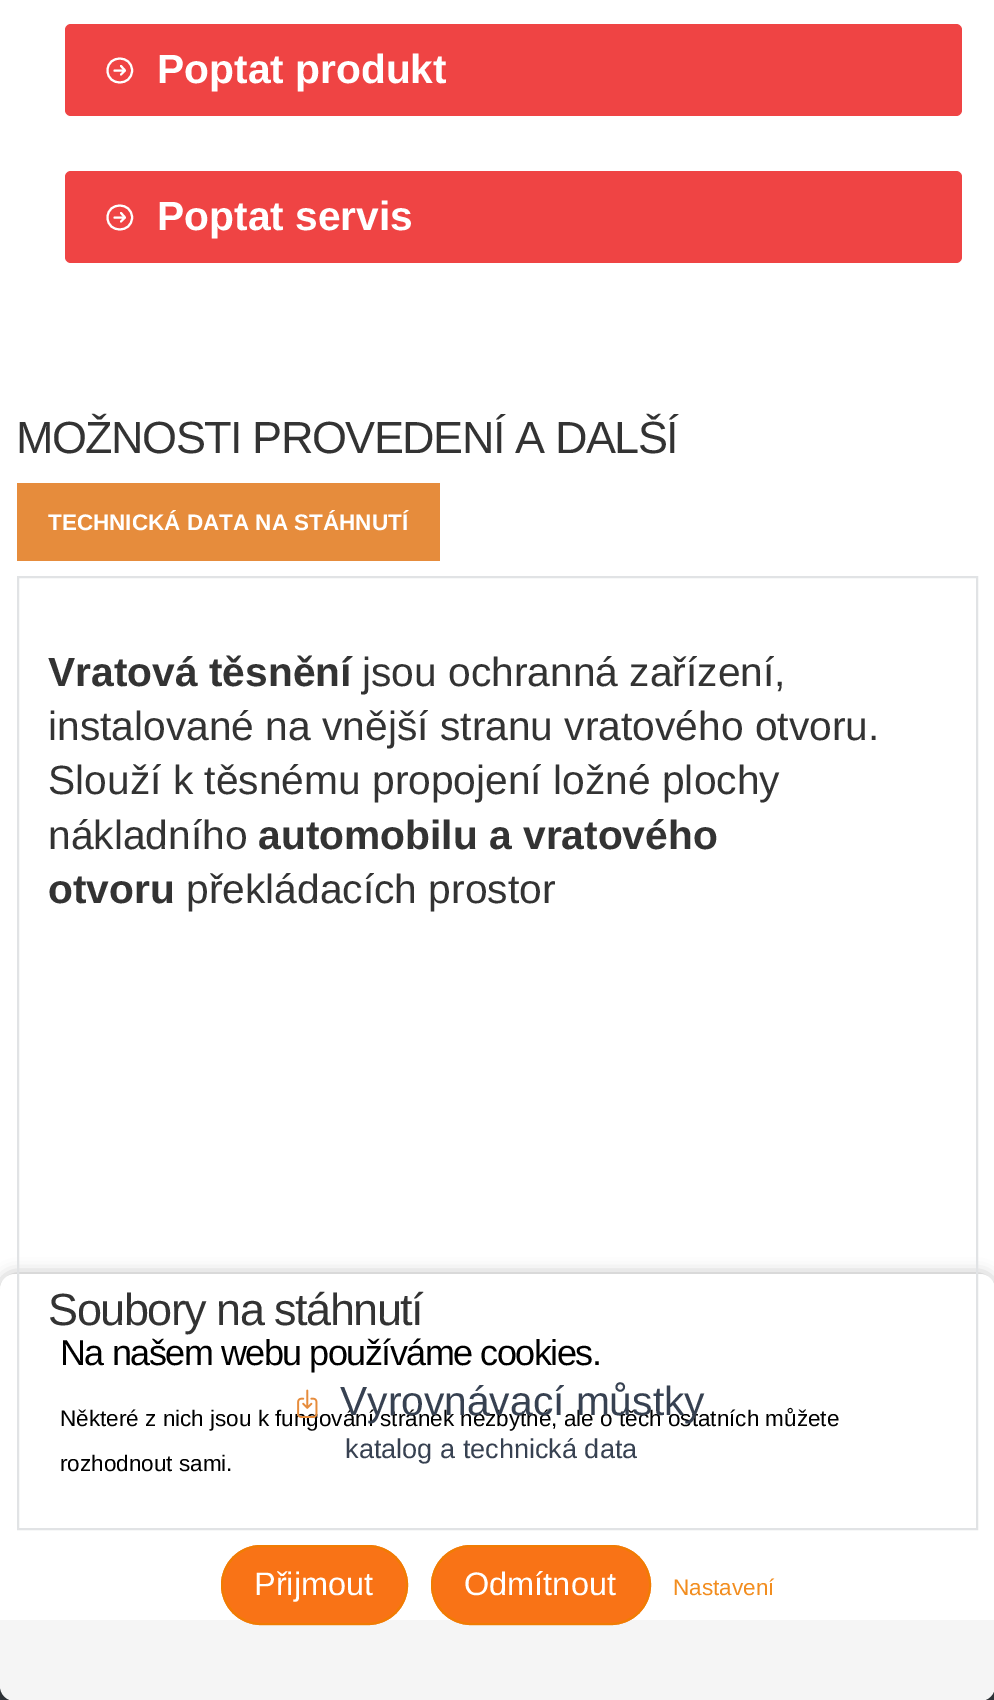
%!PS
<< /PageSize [994 1700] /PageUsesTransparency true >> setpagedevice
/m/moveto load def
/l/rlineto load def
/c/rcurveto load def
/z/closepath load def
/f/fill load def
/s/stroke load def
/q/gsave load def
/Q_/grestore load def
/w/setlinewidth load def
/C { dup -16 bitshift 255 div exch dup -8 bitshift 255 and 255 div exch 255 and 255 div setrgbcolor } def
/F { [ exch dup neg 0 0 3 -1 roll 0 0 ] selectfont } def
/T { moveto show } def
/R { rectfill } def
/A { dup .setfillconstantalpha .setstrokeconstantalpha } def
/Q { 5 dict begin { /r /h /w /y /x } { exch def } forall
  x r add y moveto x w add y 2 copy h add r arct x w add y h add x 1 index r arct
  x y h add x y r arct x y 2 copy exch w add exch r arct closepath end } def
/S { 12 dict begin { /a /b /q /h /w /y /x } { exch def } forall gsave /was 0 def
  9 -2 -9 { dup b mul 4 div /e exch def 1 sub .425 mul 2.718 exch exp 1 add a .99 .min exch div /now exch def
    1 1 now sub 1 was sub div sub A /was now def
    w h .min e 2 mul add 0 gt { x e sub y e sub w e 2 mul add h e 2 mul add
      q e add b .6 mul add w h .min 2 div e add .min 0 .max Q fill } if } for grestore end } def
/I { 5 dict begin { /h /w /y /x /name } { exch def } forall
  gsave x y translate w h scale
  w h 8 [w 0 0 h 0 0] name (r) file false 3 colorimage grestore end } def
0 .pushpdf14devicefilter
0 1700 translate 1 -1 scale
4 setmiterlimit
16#FFFFFF C
0 0 994 1700 R
16#EF4444 C
65 24 897 92 6 Q f
16#FFFFFF C
2 w
1 setlinecap
1 setlinejoin
121 74.5 m 4 -4 l 125 70.5 m -4 -4.5 l 125 70.5 m -10.5 0 l 132 70.5 m 0 16 -24.5 16 -24.5 0 c 0 -16 24.5 -16 24.5 0 c z s
/LiberationSans-Bold 40.75 F
(Poptat produkt) 157 83 T
16#EF4444 C
65 171 897 92 6 Q f
16#FFFFFF C
121 221.5 m 4 -4 l 125 217.5 m -4 -4.5 l 125 217.5 m -10.5 0 l 132 217.5 m 0 16 -24.5 16 -24.5 0 c 0 -16 24.5 -16 24.5 0 c z s
(Poptat servis) 157 230 T
/LiberationSans-Regular 45 F
16#333333 C
16 453 m -1.5 0 (MOŽNOSTI PROVEDENÍ A DALŠÍ) ashow
16#E68C3C C
17 483 423 78 R
/LiberationSans-Bold 22.5 F
16#FFFFFF C
(TECHNICKÁ DATA NA STÁHNUTÍ) 48 530 T
16#32373C C
0 1620 994 80 R
q
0 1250 m 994 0 l 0 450 l -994 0 l z 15 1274 m 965 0 l 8.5 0 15 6.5 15 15 c 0 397 l 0 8.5 -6.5 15 -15 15 c -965 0 l -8.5 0 -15 -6.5 -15 -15 c 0 -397 l 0 -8.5 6.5 -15 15 -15 c z eoclip newpath
16#000000 C
0 1274 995 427 15 7.5 .3 S
Q_
0.95 A
16#FFFFFF C
0 1274 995 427 15 Q f
1 A
16#E1E3E5 C
0 setlinecap
0 setlinejoin
18 577 959 952 rectstroke
/LiberationSans-Bold 40.75 F
16#333333 C
(Vratová těsnění) 48 686 T
/LiberationSans-Regular 40.75 F
(jsou ochranná zařízení,) 362 686 T
(instalované na vnější stranu vratového otvoru.) 48 740 T
(Slouží k těsnému propojení ložné plochy) 48 794 T
(nákladního) 48 849 T
/LiberationSans-Bold 40.75 F
(automobilu a vratového) 258 849 T
(otvoru) 48 903 T
/LiberationSans-Regular 40.75 F
(překládacích prostor) 186 903 T
/LiberationSans-Regular 45 F
48 1325 m -1.5 0 (Soubory na stáhnutí) ashow
/LiberationSans-Regular 22.5 F
16#000000 C
(Některé z nich jsou k fungování stránek nezbytné, ale o těch ostatních můžete) 60 1426 T
(1.rgb) 297 1389 21 29 I
/LiberationSans-Regular 40.75 F
16#374151 C
(Vyrovnávací můstky) 340 1415 T
/LiberationSans-Regular 27.1 F
(katalog a technická data) 345 1458 T
/LiberationSans-Regular 36 F
16#000000 C
60 1365 m -1.5 0 (Na našem webu používáme cookies.) ashow
/LiberationSans-Regular 22.5 F
(rozhodnout sami.) 60 1471 T
16#F97316 C
221 1545 187 80 40 Q f
0.88 A
16#F07D00 C
222 1546 185 78 39 Q s
/LiberationSans-Regular 32.5 F
1 A
16#FFFFFF C
(Přijmout) 254 1595 T
16#F97316 C
431 1545 220 80 40 Q f
0.88 A
16#F07D00 C
432 1546 218 78 39 Q s
1 A
16#FFFFFF C
(Odmítnout) 464 1595 T
/LiberationSans-Regular 22.5 F
16#F28D1F C
(Nastavení) 673 1595 T
.poppdf14devicefilter showpage
